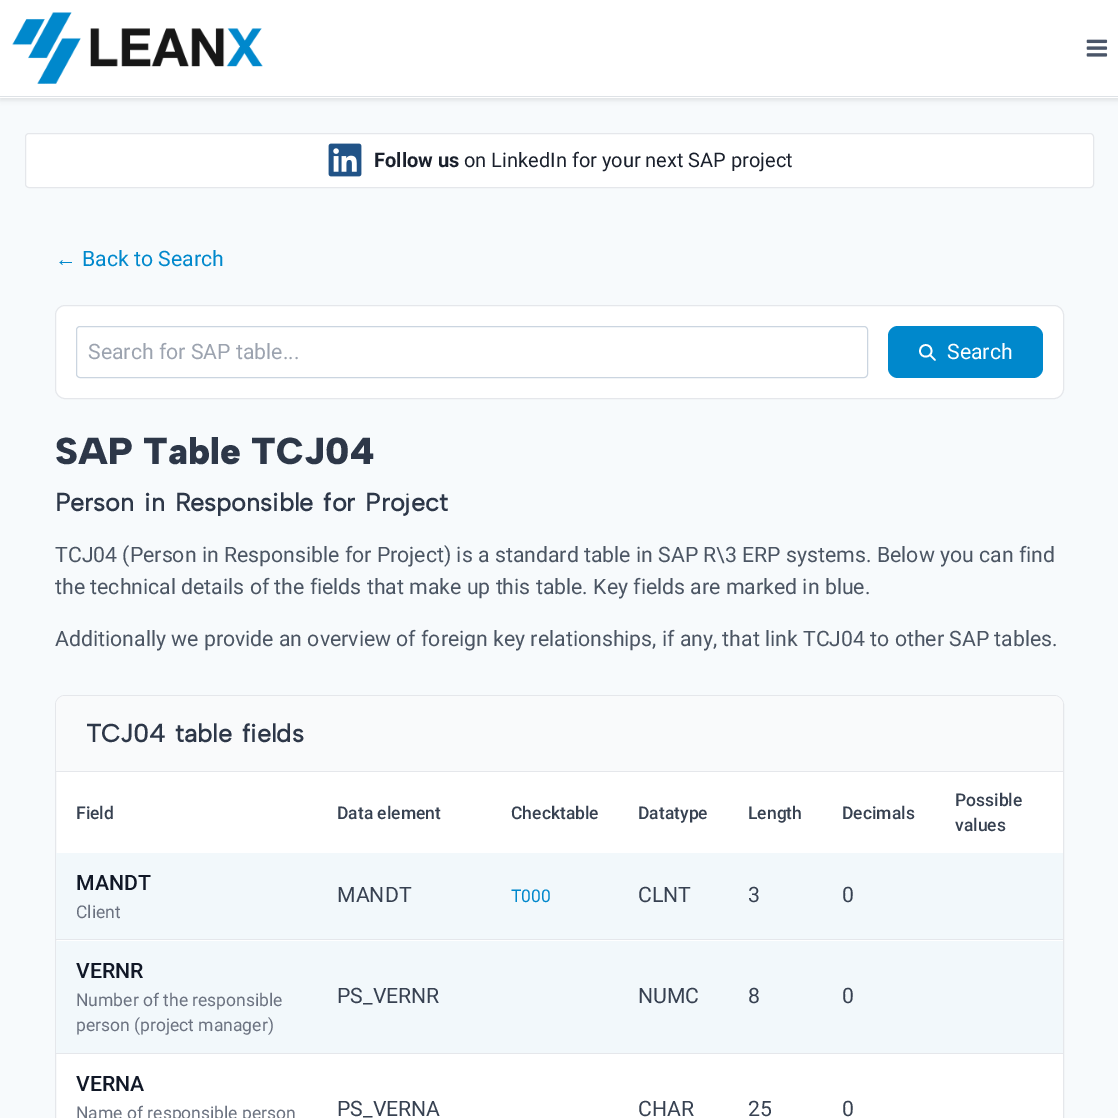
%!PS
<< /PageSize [1118 1118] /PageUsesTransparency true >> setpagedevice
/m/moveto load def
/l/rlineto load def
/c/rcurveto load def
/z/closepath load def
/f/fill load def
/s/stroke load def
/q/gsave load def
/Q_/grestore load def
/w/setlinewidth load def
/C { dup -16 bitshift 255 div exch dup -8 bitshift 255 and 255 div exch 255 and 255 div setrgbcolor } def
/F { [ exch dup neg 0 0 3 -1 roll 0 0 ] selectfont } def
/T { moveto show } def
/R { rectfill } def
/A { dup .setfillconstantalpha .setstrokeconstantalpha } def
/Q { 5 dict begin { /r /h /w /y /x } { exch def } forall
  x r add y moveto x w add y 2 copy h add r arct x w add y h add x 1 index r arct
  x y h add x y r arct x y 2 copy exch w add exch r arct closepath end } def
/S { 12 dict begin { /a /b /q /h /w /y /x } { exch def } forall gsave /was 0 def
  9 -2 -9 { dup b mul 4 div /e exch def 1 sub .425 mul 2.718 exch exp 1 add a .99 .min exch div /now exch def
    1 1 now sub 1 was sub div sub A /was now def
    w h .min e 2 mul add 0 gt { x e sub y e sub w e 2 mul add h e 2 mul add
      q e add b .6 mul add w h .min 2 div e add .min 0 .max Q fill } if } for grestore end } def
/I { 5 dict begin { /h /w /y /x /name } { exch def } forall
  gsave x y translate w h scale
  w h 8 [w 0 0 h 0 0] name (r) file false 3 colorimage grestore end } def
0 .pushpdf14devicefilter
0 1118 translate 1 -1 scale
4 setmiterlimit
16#F7FAFC C
0 0 1118 1118 R
16#FFFFFF C
0 0 1118 98 R
q
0 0 m 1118 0 l 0 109 l -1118 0 l z 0 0 m 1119 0 l 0 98 l -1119 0 l z eoclip newpath
16#000000 C
0 3 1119 97 0 2.5 .1 S
Q_
16#DEE2E6 C
0 96 1118 1 R
(1.rgb) 12 12 251 72 I
(2.rgb) 1086 39 22 18 I
16#FFFFFF C
25.5 133.5 1068 54 3.5 Q q f Q_
16#E5E7EB C
s
(3.rgb) 328 143 34 34 I
/Roboto-Bold 20 F
16#1A202C C
(Follow us) 374 167 T
/Roboto-Regular 20 F
(on LinkedIn for your next SAP project) 464 167 T
/LiberationSans-Regular 21.25 F
16#0088CC C
(←) 55 266 T
/Roboto-Regular 21.25 F
(Back to Search) 82 266 T
16#FFFFFF C
55.5 305.5 1008 93 9.5 Q q f Q_
16#E5E7EB C
s
16#CBD5E0 C
76.5 326.5 791 51 3.5 Q s
16#9CA3AF C
(Search for SAP table...) 88 359 T
16#0088CC C
888 326 155 52 10 Q f
16#FFFFFF C
1.7 w
1 setlinecap
1 setlinejoin
935 360 m -5 -5 l 931.5 351 m 0 7.5 -11.5 7.5 -11.5 0 c 0 -8 11.5 -8 11.5 0 c z s
(Search) 947 359 T
/AlbertSans-Black 37.5 F
16#2D3748 C
(SAP Table TCJ04) 55 464 T
/AlbertSans-Bold 25 F
55 511 m 3 0 32 (Person in Responsible for Project) widthshow
/Roboto-Regular 21.25 F
16#4B5563 C
(TCJ04 \(Person in Responsible for Project\) is a standard table in SAP R\\3 ERP systems. Below you can find) 55 562 T
(the technical details of the fields that make up this table. Key fields are marked in blue.) 55 594 T
(Additionally we provide an overview of foreign key relationships, if any, that link TCJ04 to other SAP tables.) 55 646 T
16#FFFFFF C
55.5 695.5 1008 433 9.5 Q q f Q_
16#E5E7EB C
1 w
0 setlinecap
0 setlinejoin
s
16#F9FAFB C
65 696 m 989 0 l 5 0 9 4 9 9 c 0 66 l -1007 0 l 0 -66 l 0 -5 4 -9 9 -9 c z f
16#E5E7EB C
56 771 1007 1 R
/AlbertSans-Bold 25 F
16#2D3748 C
86 742 m 3 0 32 (TCJ04 table fields) widthshow
/Roboto-Medium 17.5 F
16#374151 C
(Field) 76 819 T
(Data element) 337 819 T
(Checktable) 511 819 T
(Datatype) 638 819 T
(Length) 748 819 T
(Decimals) 842 819 T
(Possible) 955 806 T
(values) 955 831 T
16#F2F8FB C
56 853 1007 86 R
/Roboto-Medium 21.25 F
16#111827 C
(MANDT) 76 890 T
/Roboto-Regular 17.5 F
16#6B7280 C
(Client) 76 918 T
/Roboto-Regular 21.25 F
16#374151 C
(MANDT) 337 902 T
/Roboto-Regular 17.5 F
16#0088CC C
(T000) 511 902 T
/Roboto-Regular 21.25 F
16#374151 C
(CLNT) 638 902 T
(3) 748 902 T
(0) 842 902 T
16#F2F8FB C
56 941 1007 112 R
16#E5E7EB C
56 939 1007 1 R
/Roboto-Medium 21.25 F
16#111827 C
(VERNR) 76 978 T
/Roboto-Regular 17.5 F
16#6B7280 C
(Number of the responsible) 76 1006 T
(person \(project manager\)) 76 1031 T
/Roboto-Regular 21.25 F
16#374151 C
(PS_VERNR) 337 1003 T
(NUMC) 638 1003 T
(8) 748 1003 T
(0) 842 1003 T
16#E5E7EB C
56 1053 1007 1 R
/Roboto-Medium 21.25 F
16#111827 C
(VERNA) 76 1091 T
/Roboto-Regular 17.5 F
16#6B7280 C
(Name of responsible person) 76 1119 T
/Roboto-Regular 21.25 F
16#374151 C
(PS_VERNA) 337 1116 T
(CHAR) 638 1116 T
(25) 748 1116 T
(0) 842 1116 T
.poppdf14devicefilter showpage
